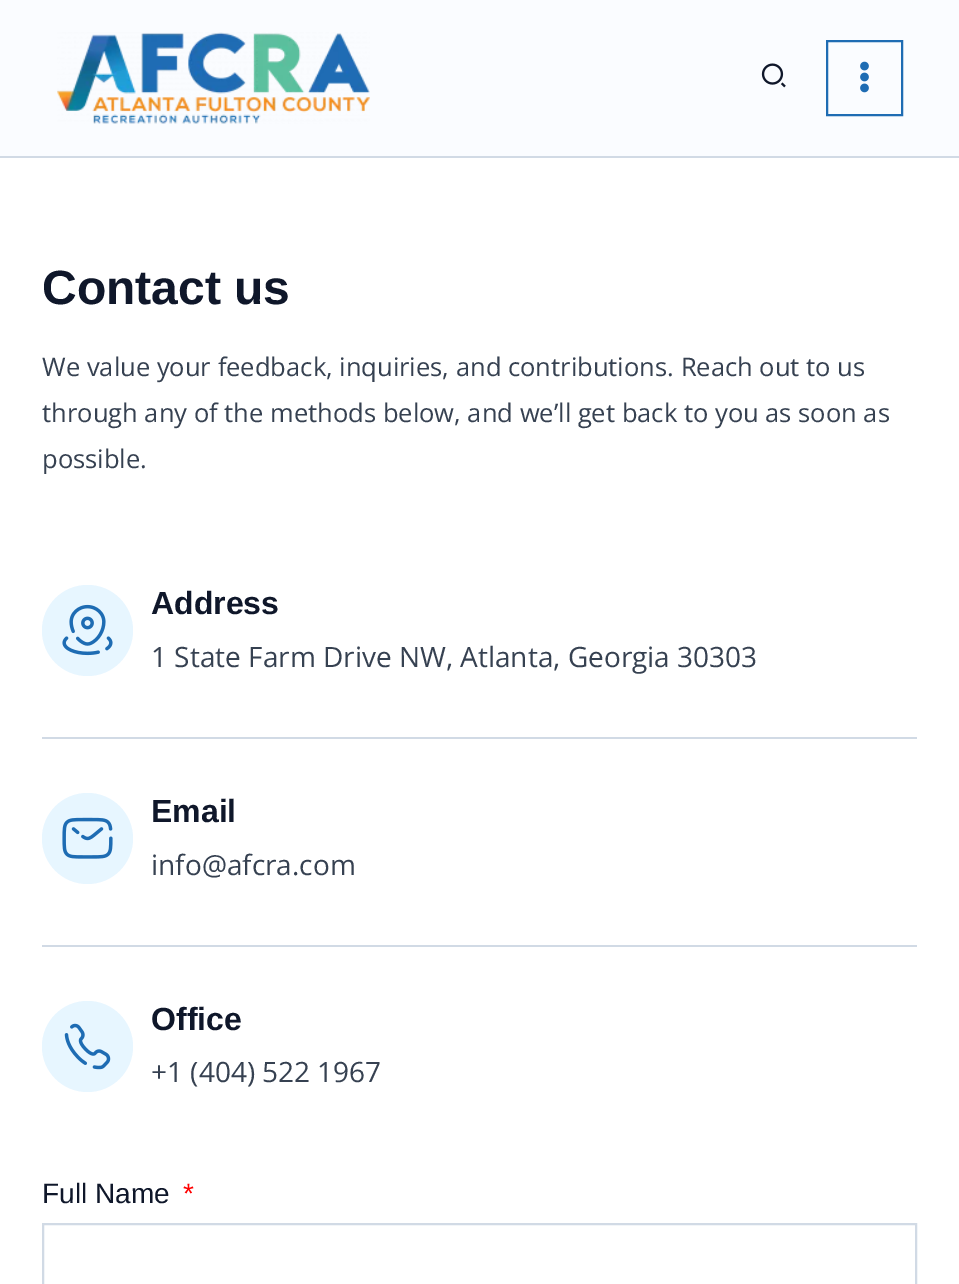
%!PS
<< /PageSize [959 1284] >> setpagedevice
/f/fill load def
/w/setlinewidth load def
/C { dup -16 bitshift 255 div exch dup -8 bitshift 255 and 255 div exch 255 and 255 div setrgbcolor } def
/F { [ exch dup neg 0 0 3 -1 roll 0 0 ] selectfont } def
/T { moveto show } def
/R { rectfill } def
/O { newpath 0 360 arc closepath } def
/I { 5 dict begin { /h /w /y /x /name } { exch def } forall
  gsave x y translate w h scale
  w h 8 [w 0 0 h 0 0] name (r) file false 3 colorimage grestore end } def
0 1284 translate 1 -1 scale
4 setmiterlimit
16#FFFFFF C
0 0 959 1284 R
16#FAFCFF C
0 0 959 156 R
16#D1DAE5 C
0 156 959 2 R
(1.rgb) 57 32 313 92 I
(2.rgb) 761 63 25 25 I
16#1E6CB3 C
2 w
827 41 75 74 rectstroke
(3.rgb) 860 61 9 32 I
/LiberationSans-Bold 48 F
16#0F172A C
(Contact us) 42 304 T
/OpenSans-Regular 25.55 F
16#364151 C
(We value your feedback, inquiries, and contributions. Reach out to us) 42 376 T
(through any of the methods below, and we’ll get back to you as soon as) 42 422 T
(possible.) 42 468 T
16#E7F6FF C
87.5 630.5 45.5 O f
(4.rgb) 62 604 51 52 I
/LiberationSans-Bold 32 F
16#0F172A C
(Address) 151 614 T
/OpenSans-Regular 28 F
16#364151 C
(1 State Farm Drive NW, Atlanta, Georgia 30303) 151 667 T
16#D1DAE5 C
42 737 875 2 R
16#E7F6FF C
87.5 838.5 45.5 O f
(5.rgb) 62 817 51 42 I
/LiberationSans-Bold 32 F
16#0F172A C
(Email) 151 822 T
/OpenSans-Regular 28 F
16#364151 C
(info@afcra.com) 151 875 T
16#D1DAE5 C
42 945 875 2 R
16#E7F6FF C
87.5 1046.5 45.5 O f
(6.rgb) 64 1023 47 47 I
/LiberationSans-Bold 32 F
16#0F172A C
(Office) 151 1030 T
/OpenSans-Regular 28 F
16#364151 C
(+1 \(404\) 522 1967) 151 1082 T
/LiberationSans-Regular 28 F
16#0F172A C
(Full Name) 42 1203 T
16#FF0000 C
(*) 183 1203 T
16#D1DAE5 C
43 1224 873 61 rectstroke
showpage
